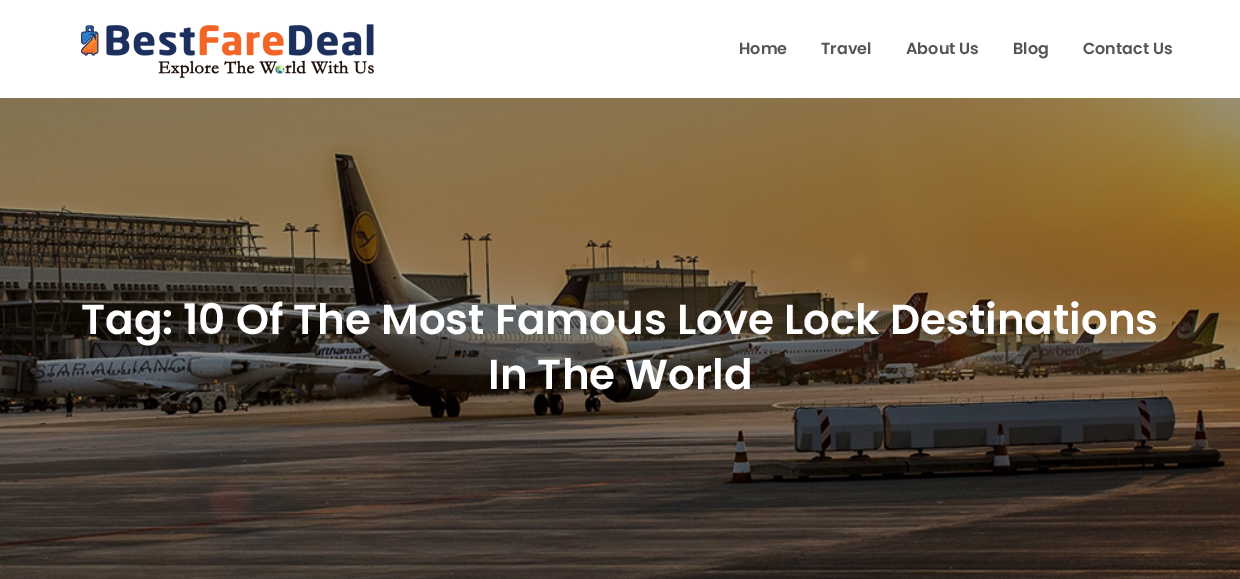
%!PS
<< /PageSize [1240 579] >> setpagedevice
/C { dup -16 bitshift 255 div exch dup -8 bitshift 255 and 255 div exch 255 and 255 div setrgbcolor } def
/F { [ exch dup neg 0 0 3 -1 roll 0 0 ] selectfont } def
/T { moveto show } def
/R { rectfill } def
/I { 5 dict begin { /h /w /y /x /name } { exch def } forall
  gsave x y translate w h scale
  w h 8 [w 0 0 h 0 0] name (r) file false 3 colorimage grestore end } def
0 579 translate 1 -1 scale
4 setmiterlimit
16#FFFFFF C
0 0 1240 579 R
(1.rgb) 81 24 293 54 I
/Poppins-SemiBold 16 F
16#555555 C
(Home) 739 54 T
(Travel) 821 54 T
(About Us) 906 54 T
(Blog) 1013 54 T
(Contact Us) 1083 54 T
(2.rgb) 0 98 1240 481 I
/Poppins-SemiBold 42 F
16#FFFFFF C
(Tag: 10 Of The Most Famous Love Lock Destinations) 81 334 T
(In The World) 488 389 T
showpage
